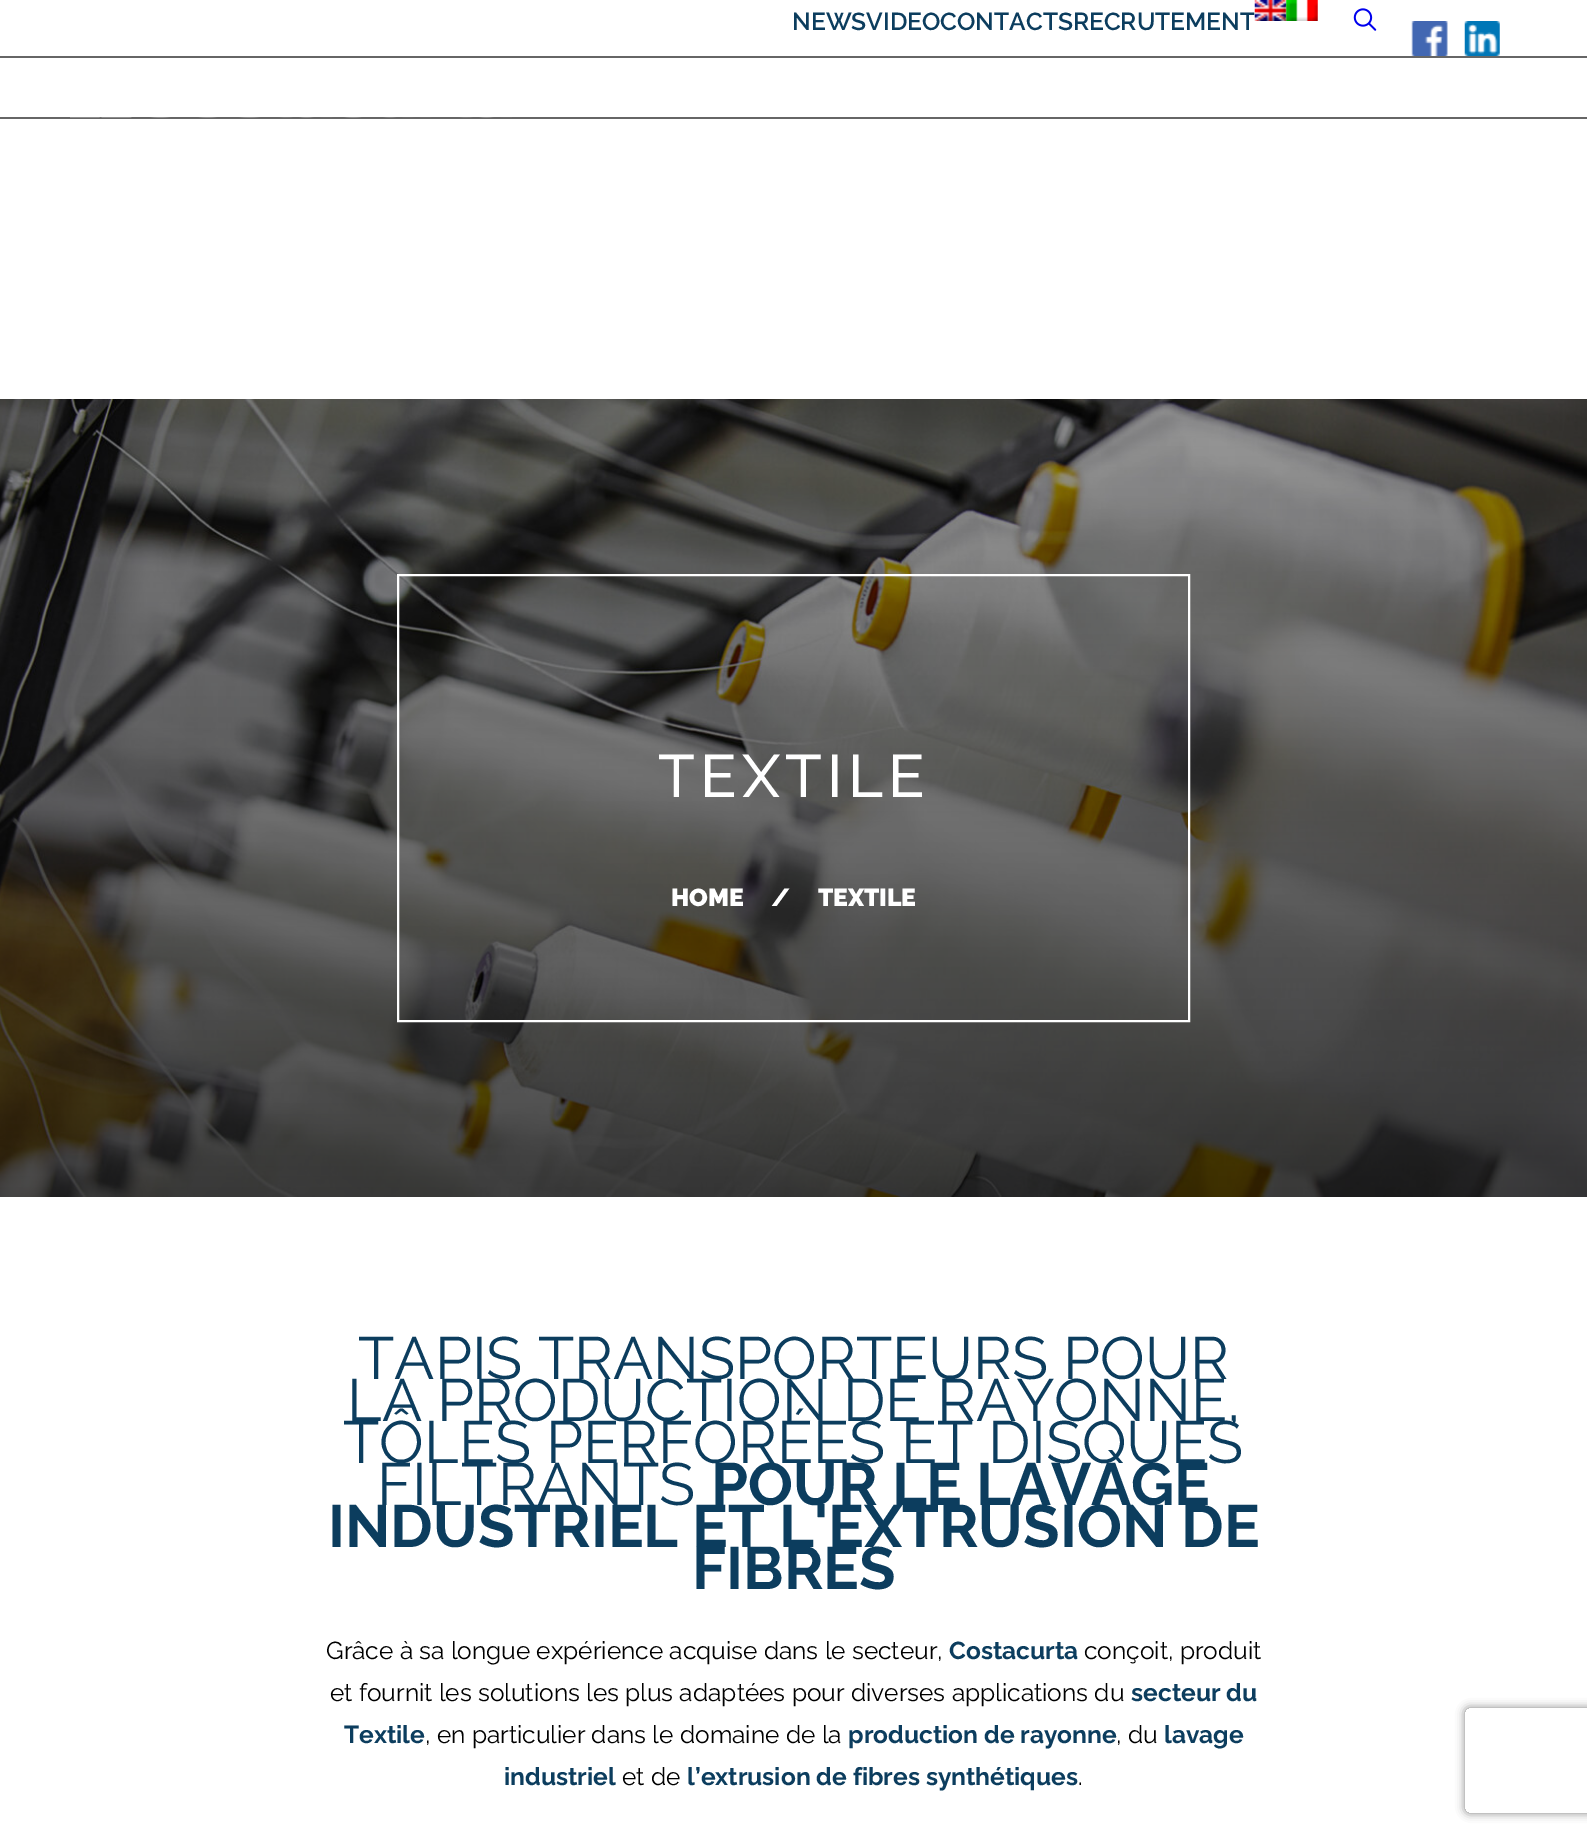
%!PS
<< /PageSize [1587 1837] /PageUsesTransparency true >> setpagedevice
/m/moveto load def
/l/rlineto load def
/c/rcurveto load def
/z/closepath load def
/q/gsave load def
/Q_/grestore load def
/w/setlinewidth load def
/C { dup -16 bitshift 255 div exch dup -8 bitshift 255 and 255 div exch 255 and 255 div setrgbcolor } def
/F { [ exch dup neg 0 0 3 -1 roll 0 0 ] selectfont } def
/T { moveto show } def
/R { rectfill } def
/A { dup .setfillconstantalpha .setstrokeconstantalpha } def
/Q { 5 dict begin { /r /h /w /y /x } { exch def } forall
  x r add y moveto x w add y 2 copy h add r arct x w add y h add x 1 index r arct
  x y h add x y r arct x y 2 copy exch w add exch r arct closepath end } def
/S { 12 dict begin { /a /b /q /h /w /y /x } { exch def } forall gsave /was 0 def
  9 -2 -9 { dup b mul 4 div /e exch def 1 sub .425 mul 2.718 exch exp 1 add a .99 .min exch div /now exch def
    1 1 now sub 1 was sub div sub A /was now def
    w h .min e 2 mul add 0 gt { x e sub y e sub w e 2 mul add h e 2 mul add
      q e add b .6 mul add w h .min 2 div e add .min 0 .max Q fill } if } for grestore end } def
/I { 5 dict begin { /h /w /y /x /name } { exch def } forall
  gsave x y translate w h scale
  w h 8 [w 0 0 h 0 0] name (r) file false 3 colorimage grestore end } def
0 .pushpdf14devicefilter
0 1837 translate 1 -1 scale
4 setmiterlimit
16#FFFFFF C
0 0 1587 1837 R
16#666666 C
0 56 1587 2 R
/Raleway-SemiBold 24.5 F
16#0C3D5E C
(NEWSVIDEOCONTACTSRECRUTEMENT) 792 30 T
(1.rgb) 1254 0 33 21 I
(2.rgb) 1286 0 32 21 I
(3.rgb) 1353 8 24 23 I
(4.rgb) 1411 21 37 35 I
(5.rgb) 1464 21 36 35 I
16#666666 C
0 117 1587 2 R
(6.rgb) 70 117 442 1 I
(7.rgb) 0 399 1587 798 I
16#FFFFFF C
2 w
398 575 791 446 rectstroke
/Raleway-Medium 60 F
658 797 m 5.25 0 (TEXTILE) ashow
/Raleway-Black 24.5 F
(HOME) 671 906 T
(/) 771 906 T
(TEXTILE) 818 906 T
/Raleway-Regular 59.5 F
16#0C3D5E C
(TAPIS TRANSPORTEURS POUR) 358 1379 T
(LA PRODUCTION DE RAYONNE,) 347 1421 T
(TÔLES PERFORÉES ET DISQUES) 343 1463 T
(FILTRANTS) 377 1505 T
/Raleway-Bold 59.5 F
(POUR LE LAVAGE) 711 1505 T
(INDUSTRIEL ET L'EXTRUSION DE) 328 1547 T
(FIBRES) 692 1589 T
/Raleway-Regular 24.5 F
16#000000 C
(Grâce à sa longue expérience acquise dans le secteur,) 326 1659 T
/Raleway-Bold 24.5 F
16#0C3D5E C
(Costacurta) 949 1659 T
/Raleway-Regular 24.5 F
16#000000 C
(conçoit, produit) 1084 1659 T
(et fournit les solutions les plus adaptées pour diverses applications du) 330 1701 T
/Raleway-Bold 24.5 F
16#0C3D5E C
(secteur du) 1131 1701 T
(Textile) 344 1743 T
/Raleway-Regular 24.5 F
16#000000 C
(, en particulier dans le domaine de la) 425 1743 T
/Raleway-Bold 24.5 F
16#0C3D5E C
(production de rayonne) 848 1743 T
/Raleway-Regular 24.5 F
16#000000 C
(, du) 1116 1743 T
/Raleway-Bold 24.5 F
16#0C3D5E C
(lavage) 1164 1743 T
(industriel) 504 1785 T
/Raleway-Regular 24.5 F
16#000000 C
(et de) 622 1785 T
/Raleway-Bold 24.5 F
16#0C3D5E C
(l’extrusion de fibres synthétiques) 687 1785 T
/Raleway-Regular 24.5 F
16#000000 C
(.) 1078 1785 T
q
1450 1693 m 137 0 l 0 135 l -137 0 l z 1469 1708 m 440 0 l 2 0 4 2 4 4 c 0 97 l 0 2 -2 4 -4 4 c -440 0 l -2 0 -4 -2 -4 -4 c 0 -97 l 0 -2 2 -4 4 -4 c z eoclip newpath
16#808080 C
1465 1708 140 105 4 4.5 1 S
Q_
.poppdf14devicefilter showpage
